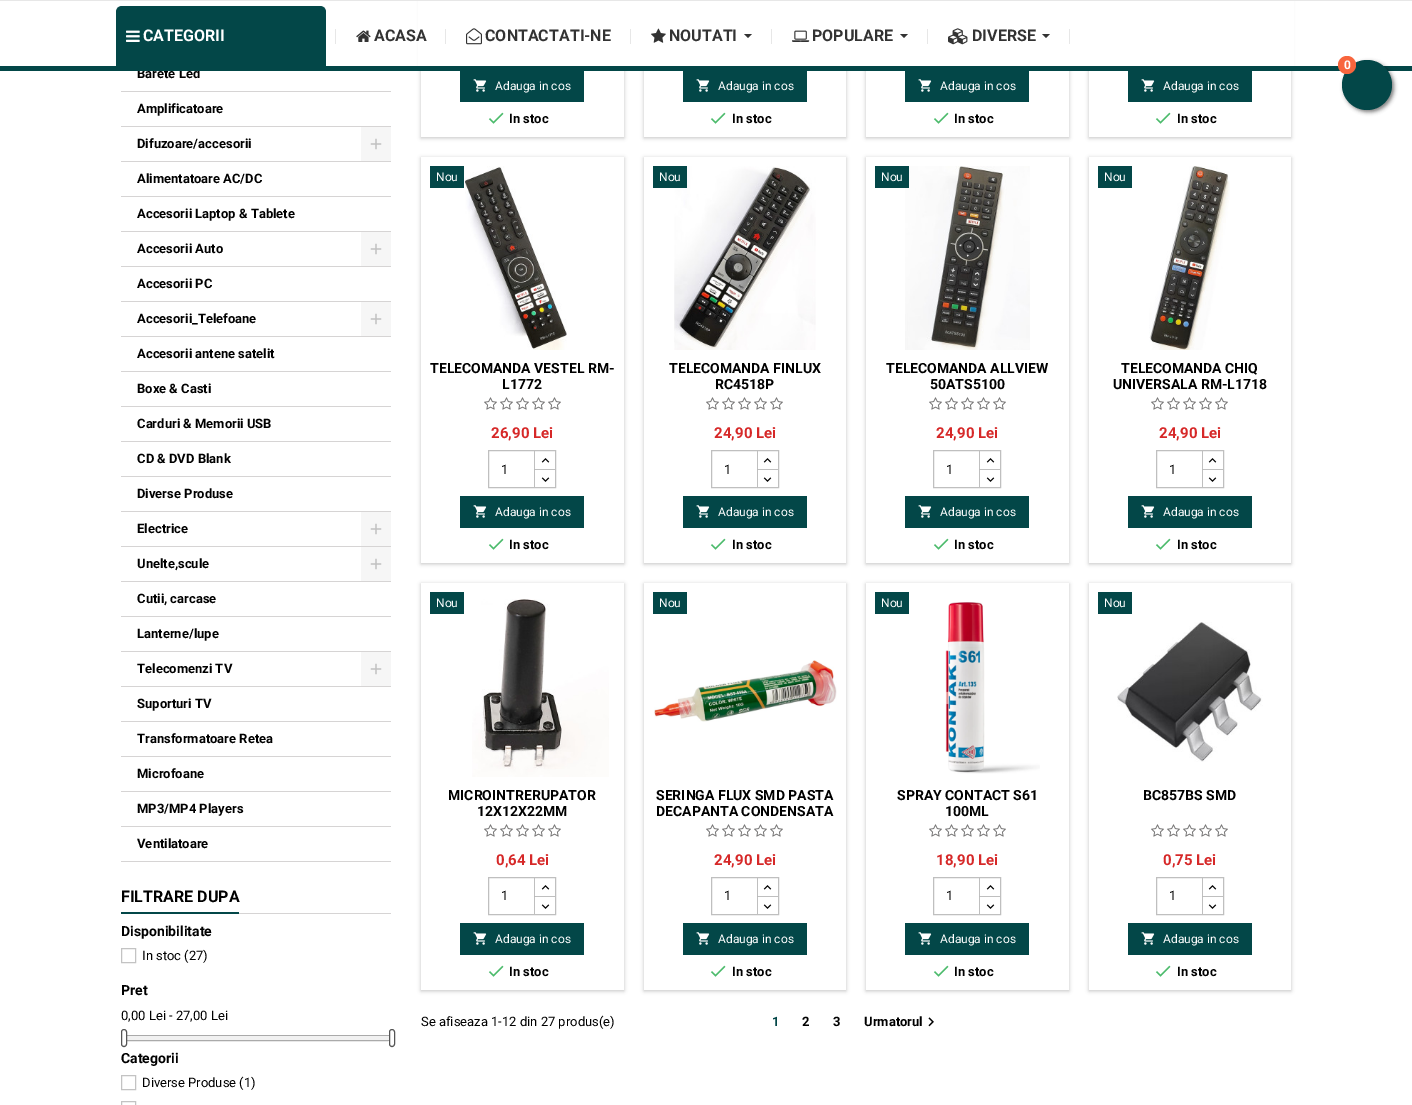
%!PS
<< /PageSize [1412 1105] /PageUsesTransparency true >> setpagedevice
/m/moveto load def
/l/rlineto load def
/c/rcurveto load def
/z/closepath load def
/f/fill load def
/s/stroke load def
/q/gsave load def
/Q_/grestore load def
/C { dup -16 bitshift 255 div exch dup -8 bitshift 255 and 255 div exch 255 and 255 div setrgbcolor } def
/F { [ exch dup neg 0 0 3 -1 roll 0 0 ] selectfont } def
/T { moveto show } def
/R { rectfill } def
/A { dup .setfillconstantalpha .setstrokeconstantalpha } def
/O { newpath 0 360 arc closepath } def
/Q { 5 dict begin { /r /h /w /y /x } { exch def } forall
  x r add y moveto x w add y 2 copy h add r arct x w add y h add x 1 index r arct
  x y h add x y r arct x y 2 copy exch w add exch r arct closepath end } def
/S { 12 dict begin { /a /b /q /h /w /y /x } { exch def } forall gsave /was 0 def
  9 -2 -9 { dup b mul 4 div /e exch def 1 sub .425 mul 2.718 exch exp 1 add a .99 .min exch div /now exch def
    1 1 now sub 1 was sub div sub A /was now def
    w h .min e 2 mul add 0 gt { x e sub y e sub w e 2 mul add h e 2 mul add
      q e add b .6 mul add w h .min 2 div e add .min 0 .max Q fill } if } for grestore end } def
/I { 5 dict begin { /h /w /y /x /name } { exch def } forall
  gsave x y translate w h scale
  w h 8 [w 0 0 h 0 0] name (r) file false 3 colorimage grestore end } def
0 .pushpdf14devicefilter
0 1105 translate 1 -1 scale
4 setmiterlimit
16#FFFFFF C
0 0 1412 1105 R
q
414 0 m 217 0 l 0 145 l -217 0 l z 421 -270 m 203 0 l 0 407 l -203 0 l z eoclip newpath
16#000000 C
421 -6 203 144 0 2 .24 S
Q_
q
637 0 m 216 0 l 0 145 l -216 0 l z 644 -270 m 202 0 l 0 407 l -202 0 l z eoclip newpath
16#000000 C
644 -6 202 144 0 2 .24 S
Q_
q
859 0 m 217 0 l 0 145 l -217 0 l z 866 -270 m 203 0 l 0 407 l -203 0 l z eoclip newpath
16#000000 C
866 -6 203 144 0 2 .24 S
Q_
q
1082 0 m 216 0 l 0 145 l -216 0 l z 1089 -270 m 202 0 l 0 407 l -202 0 l z eoclip newpath
16#000000 C
1089 -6 202 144 0 2 .24 S
Q_
418 1 876 65 R
16#E7E7E7 C
0 0 1412 1 R
/Roboto-Bold 13 F
16#000000 C
(Barete Led) 137 78 T
16#034748 C
0 66 1412 5 R
122 6 m 198 0 l 3.5 0 6 2.5 6 6 c 0 54 l -210 0 l 0 -54 l 0 -3.5 2.5 -6 6 -6 c z f
(1.rgb) 126 30 14 12 I
/Roboto-Bold 16 F
16#FFFFFF C
(CATEGORII) 143 41 T
16#E7E7E7 C
335 29 1 15 R
(2.rgb) 356 30 15 12 I
16#333333 C
(ACASA) 374 41 T
16#E7E7E7 C
445 29 1 15 R
(3.rgb) 466 28 16 17 I
16#333333 C
(CONTACTATI-NE) 485 41 T
16#E7E7E7 C
630 29 1 15 R
(4.rgb) 651 28 15 15 I
16#333333 C
(NOUTATI) 669 41 T
744 34 m 8 0 l -4 4 l z f
16#E7E7E7 C
771 29 1 15 R
(5.rgb) 792 30 18 12 I
16#333333 C
(POPULARE) 812 41 T
900 34 m 8 0 l -4 4 l z f
16#E7E7E7 C
927 29 1 15 R
(6.rgb) 948 28 20 17 I
16#333333 C
(DIVERSE) 972 41 T
1042 34 m 8 0 l -4 4 l z f
16#E7E7E7 C
1069 29 1 15 R
16#000000 C
1344 62 50 50 25 2 .5 S
16#034748 C
1367 85 25 O f
16#F8653D C
1347 65 9 O f
/Roboto-Bold 12 F
16#FFFFFF C
(0) 1344 69 T
16#D6D4D4 C
121 91 270 1 R
121 126 270 1 R
/Roboto-Bold 13 F
16#000000 C
(Amplificatoare) 137 113 T
16#D6D4D4 C
121 161 270 1 R
16#000000 C
(Difuzoare/accesorii) 137 148 T
16#F6F6F6 C
361 127 30 34 R
(7.rgb) 370 138 12 12 I
16#D6D4D4 C
121 196 270 1 R
16#000000 C
(Alimentatoare AC/DC) 137 183 T
16#D6D4D4 C
121 231 270 1 R
16#000000 C
(Accesorii Laptop & Tablete) 137 218 T
16#D6D4D4 C
121 266 270 1 R
16#000000 C
(Accesorii Auto) 137 253 T
16#F6F6F6 C
361 232 30 34 R
(7.rgb) 370 243 12 12 I
16#D6D4D4 C
121 301 270 1 R
16#000000 C
(Accesorii PC) 137 288 T
16#D6D4D4 C
121 336 270 1 R
16#000000 C
(Accesorii_Telefoane) 137 323 T
16#F6F6F6 C
361 302 30 34 R
(7.rgb) 370 313 12 12 I
16#D6D4D4 C
121 371 270 1 R
16#000000 C
(Accesorii antene satelit) 137 358 T
16#D6D4D4 C
121 406 270 1 R
16#000000 C
(Boxe & Casti) 137 393 T
16#D6D4D4 C
121 441 270 1 R
16#000000 C
(Carduri & Memorii USB) 137 428 T
16#D6D4D4 C
121 476 270 1 R
16#000000 C
(CD & DVD Blank) 137 463 T
16#D6D4D4 C
121 511 270 1 R
16#000000 C
(Diverse Produse) 137 498 T
16#D6D4D4 C
121 546 270 1 R
16#000000 C
(Electrice) 137 533 T
16#F6F6F6 C
361 512 30 34 R
(7.rgb) 370 523 12 12 I
16#D6D4D4 C
121 581 270 1 R
16#000000 C
(Unelte,scule) 137 568 T
16#F6F6F6 C
361 547 30 34 R
(7.rgb) 370 558 12 12 I
16#D6D4D4 C
121 616 270 1 R
16#000000 C
(Cutii, carcase) 137 603 T
16#D6D4D4 C
121 651 270 1 R
16#000000 C
(Lanterne/lupe) 137 638 T
16#D6D4D4 C
121 686 270 1 R
16#000000 C
(Telecomenzi TV) 137 673 T
16#F6F6F6 C
361 652 30 34 R
(7.rgb) 370 663 12 12 I
16#D6D4D4 C
121 721 270 1 R
16#000000 C
(Suporturi TV) 137 708 T
16#D6D4D4 C
121 756 270 1 R
16#000000 C
(Transformatoare Retea) 137 743 T
16#D6D4D4 C
121 791 270 1 R
16#000000 C
(Microfoane) 137 778 T
16#D6D4D4 C
121 826 270 1 R
16#000000 C
(MP3/MP4 Players) 137 813 T
16#D6D4D4 C
121 861 270 1 R
16#000000 C
(Ventilatoare) 137 848 T
16#D6D4D4 C
239 913 152 1 R
16#034748 C
121 912 118 2 R
/Roboto-Bold 16 F
16#000000 C
(FILTRARE DUPA) 121 902 T
/Roboto-Bold 14 F
(Disponibilitate) 121 936 T
16#C3C3C3 C
121.5 948.5 14 14 rectstroke
/Roboto-Regular 13 F
16#000000 C
(In stoc \(27\)) 142 960 T
/Roboto-Bold 14 F
(Pret) 121 995 T
/Roboto-Regular 13 F
(0,00 Lei - 27,00 Lei) 121 1020 T
16#AAAAAA C
121.5 1035.5 269 5 2.5 Q s
16#F1F1F1 C
122 1036 268 4 2 Q f
16#FFFFFF C
121.5 1029.5 5 17 2.5 Q q f Q_
16#555555 C
s
16#FFFFFF C
389.5 1029.5 5 17 2.5 Q q f Q_
16#555555 C
s
/Roboto-Bold 14 F
16#000000 C
(Categorii) 121 1063 T
16#C3C3C3 C
121.5 1075.5 14 14 rectstroke
/Roboto-Regular 13 F
16#000000 C
(Diverse Produse \(1\)) 142 1087 T
16#C3C3C3 C
121.5 1101.5 14 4 rectstroke
16#034748 C
460 71 124 31 R
(8.rgb) 473 79 14 13 I
/Roboto-Regular 12 F
16#FFFFFF C
(Adauga in cos) 495 90 T
(9.rgb) 488 112 16 12 I
/Roboto-Bold 13 F
16#000000 C
(In stoc) 509 123 T
16#034748 C
683 71 124 31 R
(8.rgb) 696 79 14 13 I
/Roboto-Regular 12 F
16#FFFFFF C
(Adauga in cos) 718 90 T
(9.rgb) 710 112 16 12 I
/Roboto-Bold 13 F
16#000000 C
(In stoc) 732 123 T
16#034748 C
905 71 124 31 R
(8.rgb) 918 79 14 13 I
/Roboto-Regular 12 F
16#FFFFFF C
(Adauga in cos) 940 90 T
(9.rgb) 933 112 16 12 I
/Roboto-Bold 13 F
16#000000 C
(In stoc) 954 123 T
16#034748 C
1128 71 124 31 R
(8.rgb) 1141 79 14 13 I
/Roboto-Regular 12 F
16#FFFFFF C
(Adauga in cos) 1163 90 T
(9.rgb) 1155 112 16 12 I
/Roboto-Bold 13 F
16#000000 C
(In stoc) 1177 123 T
q
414 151 m 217 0 l 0 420 l -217 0 l z 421 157 m 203 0 l 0 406 l -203 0 l z eoclip newpath
421 158 203 406 0 2 .24 S
Q_
16#034748 C
430 166 34 22 R
/Roboto-Regular 12 F
16#FFFFFF C
(Nou) 436 181 T
(10.rgb) 465 166 102 184 I
/Roboto-Bold 14 F
16#000000 C
(TELECOMANDA VESTEL RM-) 430 373 T
(L1772) 502 389 T
(11.rgb) 484 397 13 13 I
(11.rgb) 500 397 13 13 I
(11.rgb) 516 397 13 13 I
(11.rgb) 532 397 13 13 I
(11.rgb) 548 397 13 13 I
/Roboto-Bold 15 F
16#D62828 C
(26,90 Lei) 491 438 T
16#BFBFBF C
488.5 450.5 67 37 rectstroke
/Roboto-Regular 13 F
16#000000 C
(1) 501 474 T
16#BFBFBF C
534 451 1 18 R
(12.rgb) 541 458 9 5 I
534 469 m 21 0 l 0 1 l -20 0 l z f
0.25 A
16#000000 C
534 487 m 0 -18 l 1 1 l 0 17 l z f
1 A
(13.rgb) 541 477 9 5 I
16#034748 C
460 496 124 32 R
(8.rgb) 473 505 14 13 I
/Roboto-Regular 12 F
16#FFFFFF C
(Adauga in cos) 495 516 T
(9.rgb) 488 538 16 12 I
/Roboto-Bold 13 F
16#000000 C
(In stoc) 509 549 T
q
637 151 m 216 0 l 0 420 l -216 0 l z 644 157 m 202 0 l 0 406 l -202 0 l z eoclip newpath
644 158 202 406 0 2 .24 S
Q_
(14.rgb) 674 166 142 184 I
16#034748 C
653 166 34 22 R
/Roboto-Regular 12 F
16#FFFFFF C
(Nou) 659 181 T
/Roboto-Bold 14 F
16#000000 C
(TELECOMANDA FINLUX) 669 373 T
(RC4518P) 715 389 T
(11.rgb) 706 397 13 13 I
(11.rgb) 722 397 13 13 I
(11.rgb) 738 397 13 13 I
(11.rgb) 754 397 13 13 I
(11.rgb) 770 397 13 13 I
/Roboto-Bold 15 F
16#D62828 C
(24,90 Lei) 714 438 T
16#BFBFBF C
711.5 450.5 67 37 rectstroke
/Roboto-Regular 13 F
16#000000 C
(1) 724 474 T
16#BFBFBF C
757 451 1 18 R
(12.rgb) 763 458 9 5 I
757 469 m 21 0 l 0 1 l -20 0 l z f
0.25 A
16#000000 C
757 487 m 0 -18 l 1 1 l 0 17 l z f
1 A
(13.rgb) 763 477 9 5 I
16#034748 C
683 496 124 32 R
(8.rgb) 696 505 14 13 I
/Roboto-Regular 12 F
16#FFFFFF C
(Adauga in cos) 718 516 T
(9.rgb) 710 538 16 12 I
/Roboto-Bold 13 F
16#000000 C
(In stoc) 732 549 T
q
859 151 m 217 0 l 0 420 l -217 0 l z 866 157 m 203 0 l 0 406 l -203 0 l z eoclip newpath
866 158 203 406 0 2 .24 S
Q_
(15.rgb) 905 166 125 184 I
16#034748 C
875 166 34 22 R
/Roboto-Regular 12 F
16#FFFFFF C
(Nou) 881 181 T
/Roboto-Bold 14 F
16#000000 C
(TELECOMANDA ALLVIEW) 886 373 T
(50ATS5100) 930 389 T
(11.rgb) 929 397 13 13 I
(11.rgb) 945 397 13 13 I
(11.rgb) 961 397 13 13 I
(11.rgb) 977 397 13 13 I
(11.rgb) 993 397 13 13 I
/Roboto-Bold 15 F
16#D62828 C
(24,90 Lei) 936 438 T
16#BFBFBF C
933.5 450.5 67 37 rectstroke
/Roboto-Regular 13 F
16#000000 C
(1) 946 474 T
16#BFBFBF C
979 451 1 18 R
(12.rgb) 986 458 9 5 I
979 469 m 21 0 l 0 1 l -20 0 l z f
0.25 A
16#000000 C
979 487 m 0 -18 l 1 1 l 0 17 l z f
1 A
(13.rgb) 986 477 9 5 I
16#034748 C
905 496 124 32 R
(8.rgb) 918 505 14 13 I
/Roboto-Regular 12 F
16#FFFFFF C
(Adauga in cos) 940 516 T
(9.rgb) 933 538 16 12 I
/Roboto-Bold 13 F
16#000000 C
(In stoc) 954 549 T
q
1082 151 m 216 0 l 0 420 l -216 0 l z 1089 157 m 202 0 l 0 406 l -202 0 l z eoclip newpath
1089 158 202 406 0 2 .24 S
Q_
16#034748 C
1098 166 34 22 R
/Roboto-Regular 12 F
16#FFFFFF C
(Nou) 1104 181 T
(16.rgb) 1149 166 81 184 I
/Roboto-Bold 14 F
16#000000 C
(TELECOMANDA CHIQ) 1121 373 T
(UNIVERSALA RM-L1718) 1113 389 T
(11.rgb) 1151 397 13 13 I
(11.rgb) 1167 397 13 13 I
(11.rgb) 1183 397 13 13 I
(11.rgb) 1199 397 13 13 I
(11.rgb) 1215 397 13 13 I
/Roboto-Bold 15 F
16#D62828 C
(24,90 Lei) 1159 438 T
16#BFBFBF C
1156.5 450.5 67 37 rectstroke
/Roboto-Regular 13 F
16#000000 C
(1) 1169 474 T
16#BFBFBF C
1202 451 1 18 R
(12.rgb) 1208 458 9 5 I
1202 469 m 21 0 l 0 1 l -20 0 l z f
0.25 A
16#000000 C
1202 487 m 0 -18 l 1 1 l 0 17 l z f
1 A
(13.rgb) 1208 477 9 5 I
16#034748 C
1128 496 124 32 R
(8.rgb) 1141 505 14 13 I
/Roboto-Regular 12 F
16#FFFFFF C
(Adauga in cos) 1163 516 T
(9.rgb) 1155 538 16 12 I
/Roboto-Bold 13 F
16#000000 C
(In stoc) 1177 549 T
q
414 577 m 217 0 l 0 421 l -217 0 l z 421 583 m 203 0 l 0 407 l -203 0 l z eoclip newpath
421 584 203 407 0 2 .24 S
Q_
16#034748 C
430 592 34 22 R
/Roboto-Regular 12 F
16#FFFFFF C
(Nou) 436 607 T
(17.rgb) 472 599 137 178 I
/Roboto-Bold 14 F
16#000000 C
(MICROINTRERUPATOR) 448 800 T
(12X12X22MM) 477 816 T
(11.rgb) 484 824 13 13 I
(11.rgb) 500 824 13 13 I
(11.rgb) 516 824 13 13 I
(11.rgb) 532 824 13 13 I
(11.rgb) 548 824 13 13 I
/Roboto-Bold 15 F
16#D62828 C
(0,64 Lei) 496 865 T
16#BFBFBF C
488.5 877.5 67 37 rectstroke
/Roboto-Regular 13 F
16#000000 C
(1) 501 900 T
16#BFBFBF C
534 878 1 18 R
(12.rgb) 541 885 9 5 I
534 896 m 21 0 l 0 1 l -20 0 l z f
0.25 A
16#000000 C
534 914 m 0 -18 l 1 1 l 0 17 l z f
1 A
(13.rgb) 541 904 9 5 I
16#034748 C
460 923 124 32 R
(8.rgb) 473 932 14 13 I
/Roboto-Regular 12 F
16#FFFFFF C
(Adauga in cos) 495 943 T
(9.rgb) 488 965 16 12 I
/Roboto-Bold 13 F
16#000000 C
(In stoc) 509 976 T
q
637 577 m 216 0 l 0 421 l -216 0 l z 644 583 m 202 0 l 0 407 l -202 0 l z eoclip newpath
644 584 202 407 0 2 .24 S
Q_
16#034748 C
653 592 34 22 R
/Roboto-Regular 12 F
16#FFFFFF C
(Nou) 659 607 T
(18.rgb) 654 660 183 62 I
/Roboto-Bold 14 F
16#000000 C
(SERINGA FLUX SMD PASTA) 656 800 T
(DECAPANTA CONDENSATA) 656 816 T
(11.rgb) 706 824 13 13 I
(11.rgb) 722 824 13 13 I
(11.rgb) 738 824 13 13 I
(11.rgb) 754 824 13 13 I
(11.rgb) 770 824 13 13 I
/Roboto-Bold 15 F
16#D62828 C
(24,90 Lei) 714 865 T
16#BFBFBF C
711.5 877.5 67 37 rectstroke
/Roboto-Regular 13 F
16#000000 C
(1) 724 900 T
16#BFBFBF C
757 878 1 18 R
(12.rgb) 763 885 9 5 I
757 896 m 21 0 l 0 1 l -20 0 l z f
0.25 A
16#000000 C
757 914 m 0 -18 l 1 1 l 0 17 l z f
1 A
(13.rgb) 763 904 9 5 I
16#034748 C
683 923 124 32 R
(8.rgb) 696 932 14 13 I
/Roboto-Regular 12 F
16#FFFFFF C
(Adauga in cos) 718 943 T
(9.rgb) 710 965 16 12 I
/Roboto-Bold 13 F
16#000000 C
(In stoc) 732 976 T
q
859 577 m 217 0 l 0 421 l -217 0 l z 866 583 m 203 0 l 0 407 l -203 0 l z eoclip newpath
866 584 203 407 0 2 .24 S
Q_
16#034748 C
875 592 34 22 R
/Roboto-Regular 12 F
16#FFFFFF C
(Nou) 881 607 T
(19.rgb) 945 602 95 172 I
/Roboto-Bold 14 F
16#000000 C
(SPRAY CONTACT S61) 897 800 T
(100ML) 945 816 T
(11.rgb) 929 824 13 13 I
(11.rgb) 945 824 13 13 I
(11.rgb) 961 824 13 13 I
(11.rgb) 977 824 13 13 I
(11.rgb) 993 824 13 13 I
/Roboto-Bold 15 F
16#D62828 C
(18,90 Lei) 936 865 T
16#BFBFBF C
933.5 877.5 67 37 rectstroke
/Roboto-Regular 13 F
16#000000 C
(1) 946 900 T
16#BFBFBF C
979 878 1 18 R
(12.rgb) 986 885 9 5 I
979 896 m 21 0 l 0 1 l -20 0 l z f
0.25 A
16#000000 C
979 914 m 0 -18 l 1 1 l 0 17 l z f
1 A
(13.rgb) 986 904 9 5 I
16#034748 C
905 923 124 32 R
(8.rgb) 918 932 14 13 I
/Roboto-Regular 12 F
16#FFFFFF C
(Adauga in cos) 940 943 T
(9.rgb) 933 965 16 12 I
/Roboto-Bold 13 F
16#000000 C
(In stoc) 954 976 T
q
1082 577 m 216 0 l 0 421 l -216 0 l z 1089 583 m 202 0 l 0 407 l -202 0 l z eoclip newpath
1089 584 202 407 0 2 .24 S
Q_
16#034748 C
1098 592 34 22 R
/Roboto-Regular 12 F
16#FFFFFF C
(Nou) 1104 607 T
(20.rgb) 1117 622 146 140 I
/Roboto-Bold 14 F
16#000000 C
(BC857BS SMD) 1143 800 T
(11.rgb) 1151 824 13 13 I
(11.rgb) 1167 824 13 13 I
(11.rgb) 1183 824 13 13 I
(11.rgb) 1199 824 13 13 I
(11.rgb) 1215 824 13 13 I
/Roboto-Bold 15 F
16#D62828 C
(0,75 Lei) 1163 865 T
16#BFBFBF C
1156.5 877.5 67 37 rectstroke
/Roboto-Regular 13 F
16#000000 C
(1) 1169 900 T
16#BFBFBF C
1202 878 1 18 R
(12.rgb) 1208 885 9 5 I
1202 896 m 21 0 l 0 1 l -20 0 l z f
0.25 A
16#000000 C
1202 914 m 0 -18 l 1 1 l 0 17 l z f
1 A
(13.rgb) 1208 904 9 5 I
16#034748 C
1128 923 124 32 R
(8.rgb) 1141 932 14 13 I
/Roboto-Regular 12 F
16#FFFFFF C
(Adauga in cos) 1163 943 T
(9.rgb) 1155 965 16 12 I
/Roboto-Bold 13 F
16#000000 C
(In stoc) 1177 976 T
/Roboto-Regular 13 F
(Se afiseaza 1-12 din 27 produs\(e\)) 421 1026 T
/Roboto-Bold 13 F
16#034748 C
(1) 772 1026 T
16#000000 C
(2) 802 1026 T
(3) 833 1026 T
(Urmatorul) 864 1026 T
(21.rgb) 928 1017 6 10 I
.poppdf14devicefilter showpage
